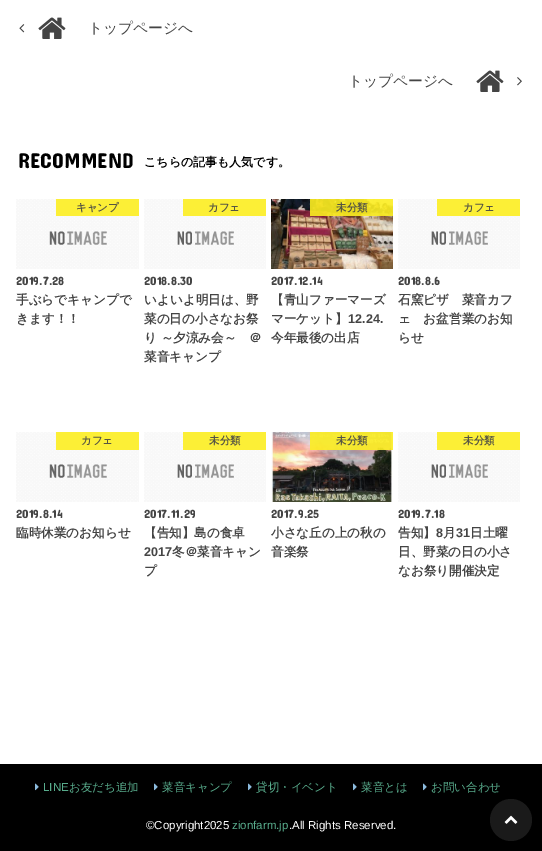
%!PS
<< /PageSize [542 851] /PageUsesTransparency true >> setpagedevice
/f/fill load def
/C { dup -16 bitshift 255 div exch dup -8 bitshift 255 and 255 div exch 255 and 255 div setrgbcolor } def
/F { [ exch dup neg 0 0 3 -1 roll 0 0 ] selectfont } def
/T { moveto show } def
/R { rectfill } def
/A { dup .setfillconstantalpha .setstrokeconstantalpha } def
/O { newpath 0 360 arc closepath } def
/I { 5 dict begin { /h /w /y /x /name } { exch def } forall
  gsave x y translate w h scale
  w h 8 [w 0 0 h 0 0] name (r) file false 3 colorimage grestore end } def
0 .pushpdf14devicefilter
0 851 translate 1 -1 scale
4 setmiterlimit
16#FFFFFF C
0 0 542 851 R
(1.rgb) 19 24 6 9 I
(2.rgb) 38 17 28 22 I
/WenQuanYiZenHei-Medium 14.75 F
16#444444 C
(トップページへ) 88 33 T
(トップページへ) 348 86 T
(2.rgb) 476 70 28 22 I
(3.rgb) 517 77 5 9 I
/ConcertOne-Regular 21.5 F
16#000000 C
(RECOMMEND) 18 168 T
/WenQuanYiZenHei-Bold 12 F
(こちらの記事も人気です。) 144 166 T
(4.rgb) 16 199 123 70 I
0.9 A
16#FCEE21 C
56 199 83 17 R
/WenQuanYiZenHei-Bold 10.5 F
1 A
16#565543 C
(キャンプ) 76 211 T
/ConcertOne-Regular 12 F
16#444444 C
(2019.7.28) 16 285 T
/WenQuanYiZenHei-Bold 12.6 F
(手ぶらでキャンプで) 16 304 T
(きます！！) 16 323 T
(5.rgb) 144 199 122 70 I
0.9 A
16#FCEE21 C
183 199 83 17 R
/WenQuanYiZenHei-Bold 10.5 F
1 A
16#565543 C
(カフェ) 208 211 T
/ConcertOne-Regular 12 F
16#444444 C
(2018.8.30) 144 285 T
/WenQuanYiZenHei-Bold 12.6 F
(いよいよ明日は、野) 144 304 T
(菜の日の小さなお祭) 144 323 T
(り ～夕涼み会～　＠) 144 342 T
(菜音キャンプ) 144 361 T
(6.rgb) 271 199 122 70 I
0.9 A
16#FCEE21 C
310 199 83 17 R
/WenQuanYiZenHei-Bold 10.5 F
1 A
16#565543 C
(未分類) 336 211 T
/ConcertOne-Regular 12 F
16#444444 C
(2017.12.14) 271 285 T
/WenQuanYiZenHei-Bold 12.6 F
(【青山ファーマーズ) 271 304 T
(マーケット】) 271 323 T
/LiberationSans-Bold 12.6 F
(12.24.) 348 323 T
/WenQuanYiZenHei-Bold 12.6 F
(今年最後の出店) 271 342 T
(5.rgb) 398 199 122 70 I
0.9 A
16#FCEE21 C
437 199 83 17 R
/WenQuanYiZenHei-Bold 10.5 F
1 A
16#565543 C
(カフェ) 463 211 T
/ConcertOne-Regular 12 F
16#444444 C
(2018.8.6) 398 285 T
/WenQuanYiZenHei-Bold 12.6 F
(石窯ピザ　菜音カフ) 398 304 T
(ェ　お盆営業のお知) 398 323 T
(らせ) 398 342 T
(4.rgb) 16 432 123 70 I
0.9 A
16#FCEE21 C
56 432 83 18 R
/WenQuanYiZenHei-Bold 10.5 F
1 A
16#565543 C
(カフェ) 81 444 T
/ConcertOne-Regular 12 F
16#444444 C
(2019.8.14) 16 518 T
/WenQuanYiZenHei-Bold 12.6 F
(臨時休業のお知らせ) 16 537 T
(5.rgb) 144 432 122 70 I
0.9 A
16#FCEE21 C
183 432 83 18 R
/WenQuanYiZenHei-Bold 10.5 F
1 A
16#565543 C
(未分類) 209 444 T
/ConcertOne-Regular 12 F
16#444444 C
(2017.11.29) 144 518 T
/WenQuanYiZenHei-Bold 12.6 F
(【告知】島の食卓) 144 537 T
/LiberationSans-Bold 12.6 F
(2017) 144 556 T
/WenQuanYiZenHei-Bold 12.6 F
(冬＠菜音キャン) 172 556 T
(プ) 144 575 T
(7.rgb) 271 432 122 70 I
0.9 A
16#FCEE21 C
310 432 83 18 R
/WenQuanYiZenHei-Bold 10.5 F
1 A
16#565543 C
(未分類) 336 444 T
/ConcertOne-Regular 12 F
16#444444 C
(2017.9.25) 271 518 T
/WenQuanYiZenHei-Bold 12.6 F
(小さな丘の上の秋の) 271 537 T
(音楽祭) 271 556 T
(5.rgb) 398 432 122 70 I
0.9 A
16#FCEE21 C
437 432 83 18 R
/WenQuanYiZenHei-Bold 10.5 F
1 A
16#565543 C
(未分類) 463 444 T
/ConcertOne-Regular 12 F
16#444444 C
(2019.7.18) 398 518 T
/WenQuanYiZenHei-Bold 12.6 F
(告知】) 398 537 T
/LiberationSans-Bold 12.6 F
(8) 436 537 T
/WenQuanYiZenHei-Bold 12.6 F
(月) 443 537 T
/LiberationSans-Bold 12.6 F
(31) 456 537 T
/WenQuanYiZenHei-Bold 12.6 F
(日土曜) 470 537 T
(日、野菜の日の小さ) 398 556 T
(なお祭り開催決定) 398 575 T
16#000000 C
0 764 542 87 R
(8.rgb) 35 783 4 8 I
/LiberationSans-Regular 11.5 F
16#58AC8C C
(LINE) 43 791 T
/WenQuanYiZenHei-Medium 11.5 F
(お友だち追加) 69 791 T
(8.rgb) 154 783 4 8 I
(菜音キャンプ) 162 791 T
(8.rgb) 248 783 4 8 I
(貸切・イベント) 256 791 T
(8.rgb) 353 783 4 8 I
(菜音とは) 361 791 T
(8.rgb) 423 783 4 8 I
(お問い合わせ) 431 791 T
/LiberationSans-Regular 11.5 F
16#FFFFFF C
(©Copyright2025) 146 829 T
16#58AC8C C
(zionfarm.jp) 232 829 T
16#FFFFFF C
(.All Rights Reserved.) 289 829 T
16#1A1A1A C
511 820 21 O f
(9.rgb) 504 815 14 9 I
.poppdf14devicefilter showpage
